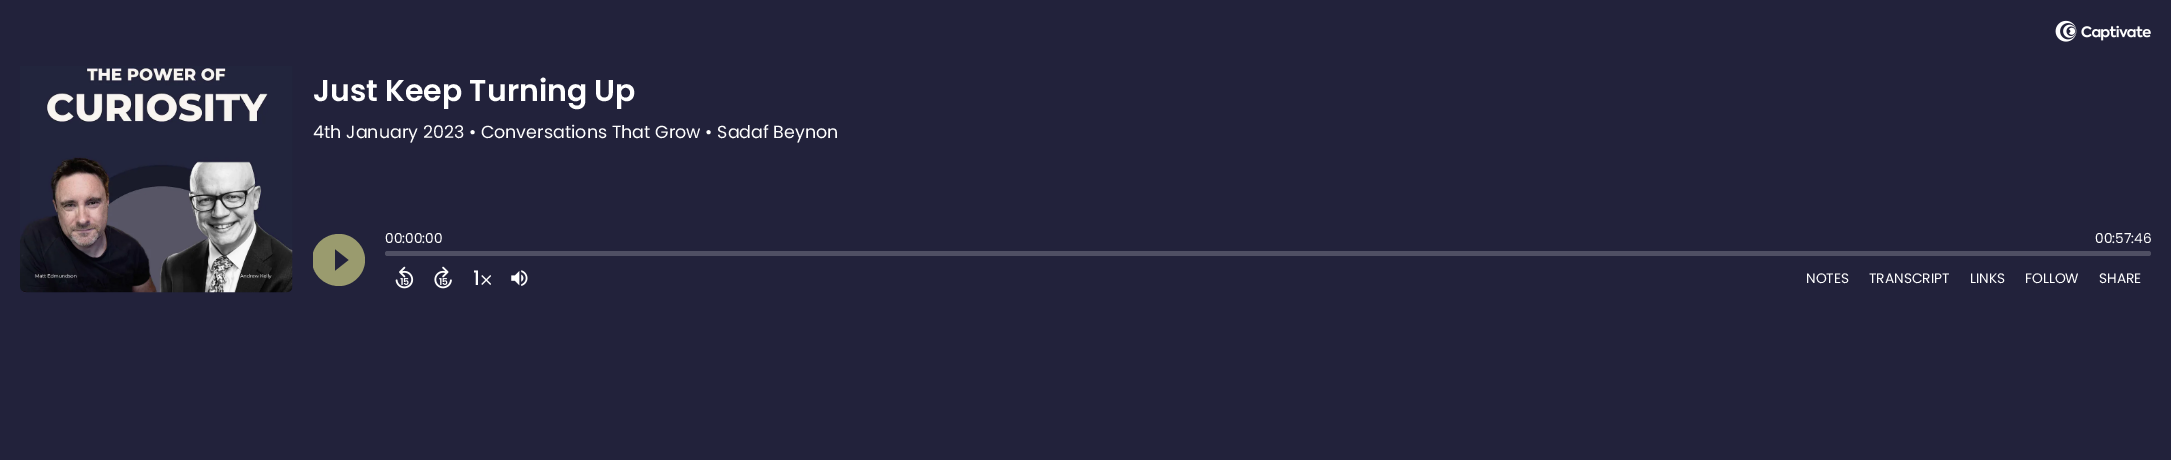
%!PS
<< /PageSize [2171 460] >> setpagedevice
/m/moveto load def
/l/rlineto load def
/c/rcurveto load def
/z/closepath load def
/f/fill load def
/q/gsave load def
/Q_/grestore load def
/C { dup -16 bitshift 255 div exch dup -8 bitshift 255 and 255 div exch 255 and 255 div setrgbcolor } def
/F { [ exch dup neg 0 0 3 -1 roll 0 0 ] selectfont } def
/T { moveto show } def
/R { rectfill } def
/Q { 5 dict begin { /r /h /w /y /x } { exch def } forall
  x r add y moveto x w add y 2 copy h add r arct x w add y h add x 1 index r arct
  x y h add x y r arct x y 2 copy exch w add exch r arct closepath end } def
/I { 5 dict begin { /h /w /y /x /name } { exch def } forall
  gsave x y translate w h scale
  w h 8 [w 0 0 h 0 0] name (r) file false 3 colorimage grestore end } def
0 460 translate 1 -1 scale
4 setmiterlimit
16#22223B C
0 0 2171 460 R
(1.rgb) 2055 20 96 22 I
(2.rgb) 20 66 273 227 I
/Poppins-SemiBold 30 F
16#FFFFFF C
(Just Keep Turning Up) 313 101 T
/Poppins-Regular 17.5 F
(4th January 2023 • Conversations That Grow • Sadaf Beynon) 313 138 T
q
313 234 52 52 rectclip
16#9A9B6E C
339 286 m 14 0 26 -12 26 -26 c 0 -14 -12 -26 -26 -26 c -15 0 -27 12 -27 26 c 0 14 12 26 27 26 c z 335 271 m 14 -11 l -14 -11 l z eofill
Q_
/Poppins-Regular 13.75 F
(00:00:00) 385 243 T
(00:57:46) 2095 243 T
16#4F4F63 C
385 251 1766 5 2.5 Q f
(3.rgb) 395 266 19 23 I
(4.rgb) 434 266 18 23 I
/Poppins-Medium 20 F
16#FFFFFF C
(1) 473 285 T
(5.rgb) 481 275 10 10 I
(6.rgb) 511 270 17 16 I
/Poppins-Regular 13.75 F
(NOTES) 1806 283 T
(TRANSCRIPT) 1869 283 T
(LINKS) 1970 283 T
(FOLLOW) 2025 283 T
(SHARE) 2099 283 T
showpage
